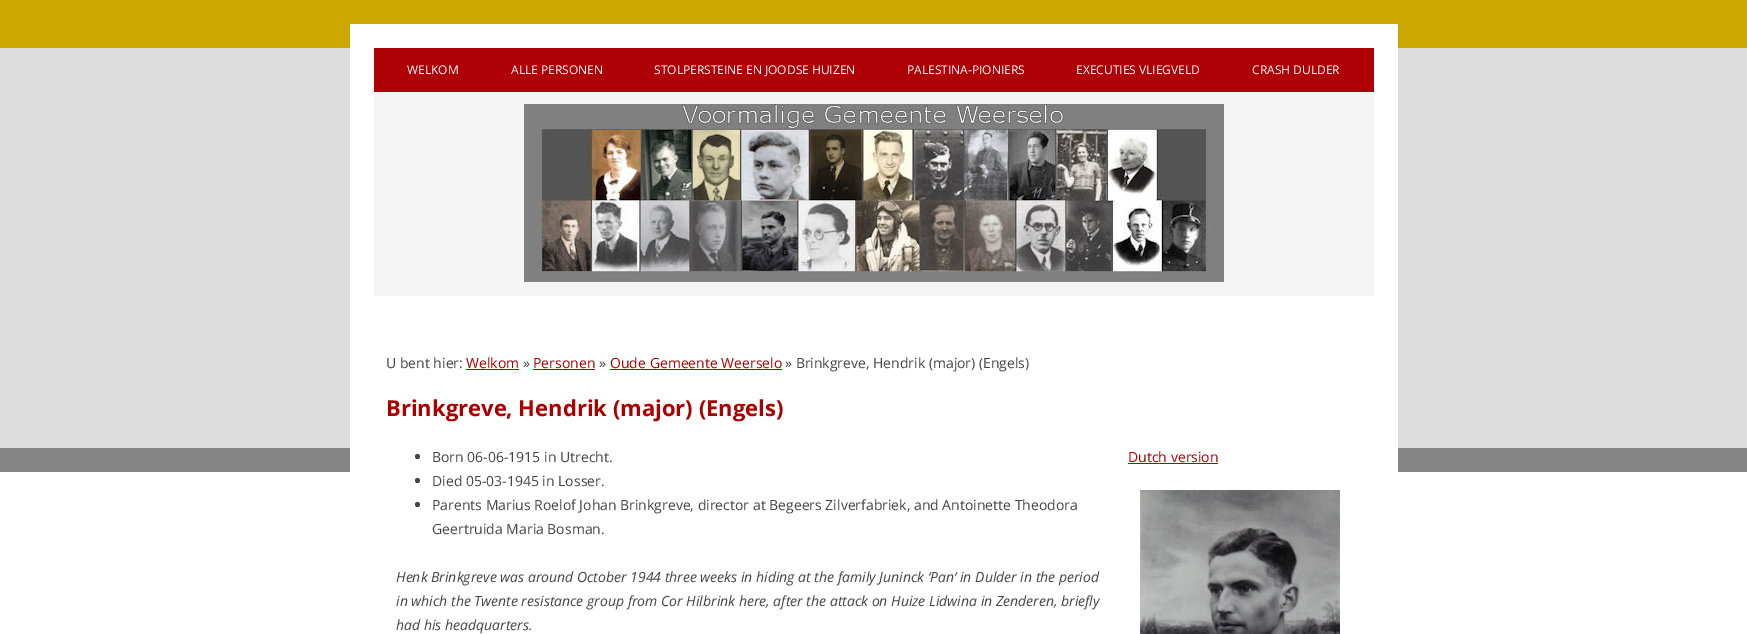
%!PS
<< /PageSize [1747 634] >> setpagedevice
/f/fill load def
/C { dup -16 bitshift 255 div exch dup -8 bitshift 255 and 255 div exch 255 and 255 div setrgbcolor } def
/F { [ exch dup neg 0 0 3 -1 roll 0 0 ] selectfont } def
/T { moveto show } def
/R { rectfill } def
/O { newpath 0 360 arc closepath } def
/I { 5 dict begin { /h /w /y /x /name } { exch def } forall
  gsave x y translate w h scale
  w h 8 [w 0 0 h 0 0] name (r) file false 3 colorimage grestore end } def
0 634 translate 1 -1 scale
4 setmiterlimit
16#FFFFFF C
0 0 1747 634 R
(1.rgb) 0 0 1747 472 I
350 24 1048 448 R
16#AF0105 C
374 48 1000 44 R
/OpenSans-Regular 12 F
16#FFFFFF C
(WELKOM) 407 74 T
(ALLE PERSONEN) 511 74 T
(STOLPERSTEINE EN JOODSE HUIZEN) 654 74 T
(PALESTINA-PIONIERS) 907 74 T
(EXECUTIES VLIEGVELD) 1076 74 T
(CRASH DULDER) 1252 74 T
16#F5F5F5 C
374 92 1000 204 R
(2.rgb) 524 104 700 178 I
/OpenSans-Regular 14 F
16#444444 C
(U bent hier:) 386 368 T
16#AA0000 C
(Welkom) 466 368 T
466 369 53 1 R
16#444444 C
(») 523 368 T
16#AA0000 C
(Personen) 533 368 T
533 369 62 1 R
16#444444 C
(») 599 368 T
16#AA0000 C
(Oude Gemeente Weerselo) 610 368 T
610 369 172 1 R
16#444444 C
(» Brinkgreve, Hendrik \(major\) \(Engels\)) 785 368 T
/OpenSans-Bold 22 F
16#AA0000 C
(Brinkgreve, Hendrik \(major\) \(Engels\)) 386 416 T
16#444444 C
417.5 456.5 2.5 O f
/OpenSans-Regular 14 F
(Born 06-06-1915 in Utrecht.) 432 462 T
417.5 480.5 2.5 O f
(Died 05-03-1945 in Losser.) 432 486 T
417.5 504.5 2.5 O f
(Parents Marius Roelof Johan Brinkgreve, director at Begeers Zilverfabriek, and Antoinette Theodora) 432 510 T
(Geertruida Maria Bosman.) 432 534 T
/OpenSans-Italic 14 F
(Henk Brinkgreve was around October 1944 three weeks in hiding at the family Juninck ‘Pan‘ in Dulder in the period) 396 582 T
(in which the Twente resistance group from Cor Hilbrink here, after the attack on Huize Lidwina in Zenderen, briefly) 396 606 T
(had his headquarters.) 396 630 T
/OpenSans-Regular 14 F
16#AA0000 C
(Dutch version) 1128 462 T
1128 463 90 1 R
(3.rgb) 1140 490 200 144 I
showpage
